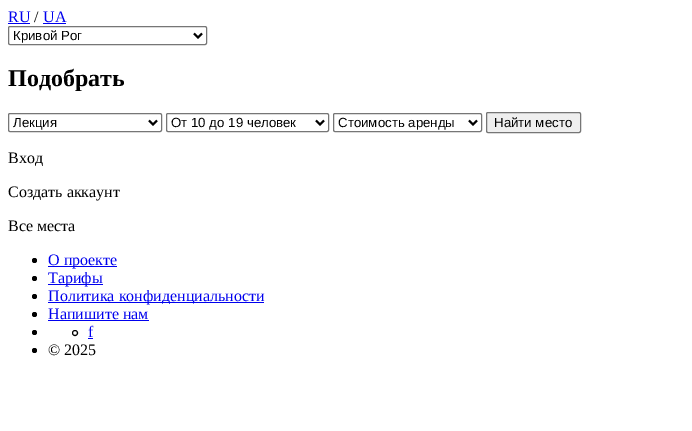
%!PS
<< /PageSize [692 431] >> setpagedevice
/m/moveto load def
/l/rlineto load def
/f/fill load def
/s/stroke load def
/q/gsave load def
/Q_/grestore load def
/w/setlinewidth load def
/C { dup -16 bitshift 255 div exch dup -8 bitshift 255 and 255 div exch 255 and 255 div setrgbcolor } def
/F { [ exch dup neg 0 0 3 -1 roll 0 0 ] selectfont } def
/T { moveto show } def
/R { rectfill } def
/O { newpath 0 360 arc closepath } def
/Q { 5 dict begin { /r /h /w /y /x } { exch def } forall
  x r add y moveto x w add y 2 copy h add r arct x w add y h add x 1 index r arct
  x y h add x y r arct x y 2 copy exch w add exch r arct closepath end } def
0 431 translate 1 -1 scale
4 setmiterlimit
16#FFFFFF C
0 0 692 431 R
/LiberationSerif-Regular 16 F
16#0000EE C
(RU) 8 22 T
8 23 22 1 R
16#000000 C
(/) 34 22 T
16#0000EE C
(UA) 43 22 T
43 23 23 1 R
16#767676 C
8.5 26.5 198 18 1.5 Q s
16#000000 C
2 w
194 33.5 m 4 4 l 4 -4 l s
/LiberationSans-Regular 13.25 F
(Кривой Рог) 13 40 T
/LiberationSerif-Bold 24 F
(Подобрать) 8 86 T
16#767676 C
1 w
8.5 113.5 153 18 1.5 Q s
16#000000 C
2 w
149 120.5 m 4 4 l 4 -4 l s
/LiberationSans-Regular 13.25 F
(Лекция) 13 127 T
16#767676 C
1 w
166.5 113.5 162 18 1.5 Q s
16#000000 C
2 w
316 120.5 m 4 4 l 4 -4 l s
(От 10 до 19 человек) 171 127 T
16#767676 C
1 w
333.5 113.5 148 18 1.5 Q s
16#000000 C
2 w
469 120.5 m 4 4 l 4 -4 l s
(Стоимость аренды) 338 127 T
16#EFEFEF C
486.5 112.5 94 20 1.5 Q q f Q_
16#767676 C
1 w
s
16#000000 C
(Найти место) 494 127 T
/LiberationSerif-Regular 16 F
(Вход) 8 163 T
(Создать аккаунт) 8 197 T
(Все места) 8 231 T
34.5 260.5 2.5 O f
16#0000EE C
48 266 69 1 R
(О проекте) 48 265 T
16#000000 C
34.5 278.5 2.5 O f
16#0000EE C
48 284 55 1 R
(Тарифы) 48 283 T
16#000000 C
34.5 296.5 2.5 O f
16#0000EE C
48 302 216 1 R
(Политика конфиденциальности) 48 301 T
16#000000 C
34.5 314.5 2.5 O f
16#0000EE C
(Напишите нам) 48 319 T
48 320 101 1 R
16#000000 C
34.5 332.5 2.5 O f
75 333 2.5 O s
16#0000EE C
(f) 88 337 T
88 338 5 1 R
16#000000 C
34.5 350.5 2.5 O f
(© 2025) 48 355 T
showpage
